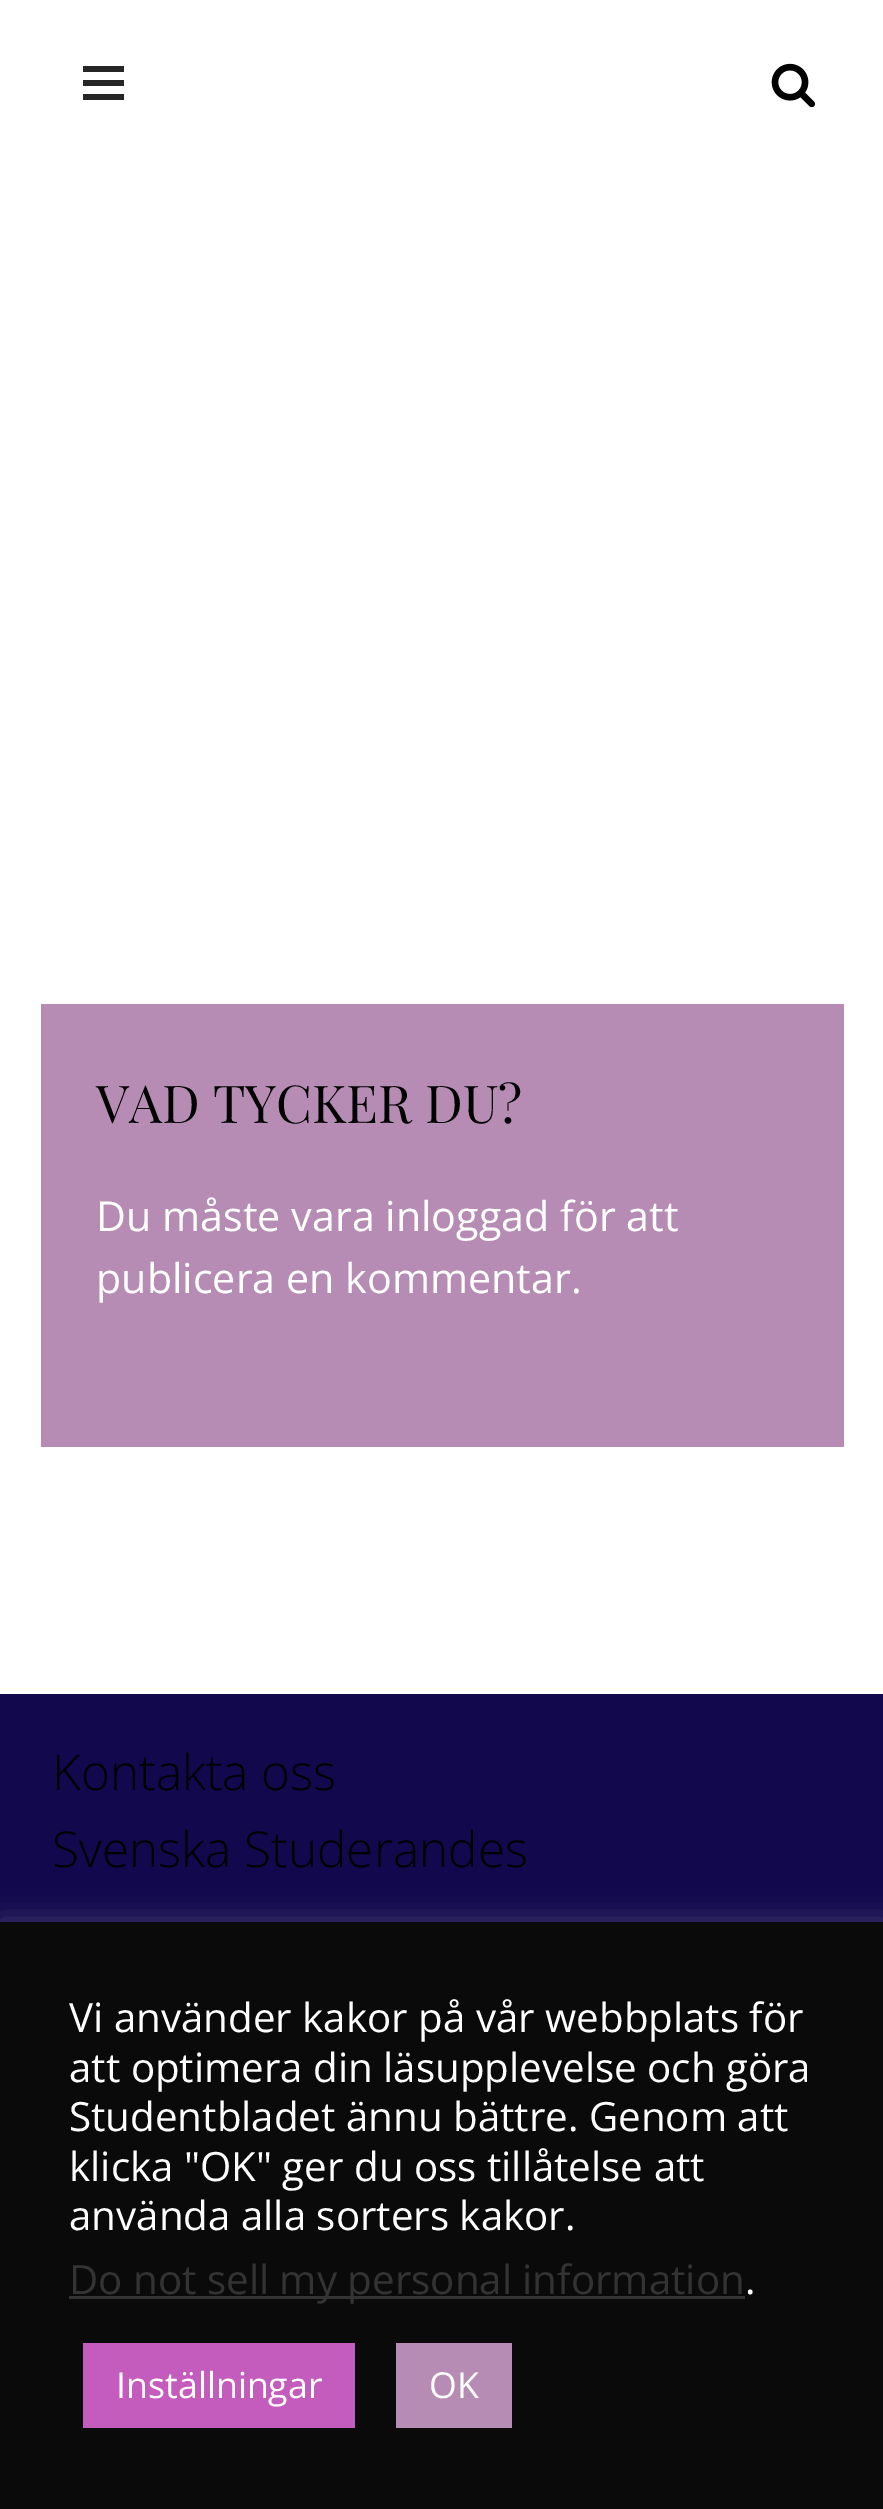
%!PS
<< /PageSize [883 2509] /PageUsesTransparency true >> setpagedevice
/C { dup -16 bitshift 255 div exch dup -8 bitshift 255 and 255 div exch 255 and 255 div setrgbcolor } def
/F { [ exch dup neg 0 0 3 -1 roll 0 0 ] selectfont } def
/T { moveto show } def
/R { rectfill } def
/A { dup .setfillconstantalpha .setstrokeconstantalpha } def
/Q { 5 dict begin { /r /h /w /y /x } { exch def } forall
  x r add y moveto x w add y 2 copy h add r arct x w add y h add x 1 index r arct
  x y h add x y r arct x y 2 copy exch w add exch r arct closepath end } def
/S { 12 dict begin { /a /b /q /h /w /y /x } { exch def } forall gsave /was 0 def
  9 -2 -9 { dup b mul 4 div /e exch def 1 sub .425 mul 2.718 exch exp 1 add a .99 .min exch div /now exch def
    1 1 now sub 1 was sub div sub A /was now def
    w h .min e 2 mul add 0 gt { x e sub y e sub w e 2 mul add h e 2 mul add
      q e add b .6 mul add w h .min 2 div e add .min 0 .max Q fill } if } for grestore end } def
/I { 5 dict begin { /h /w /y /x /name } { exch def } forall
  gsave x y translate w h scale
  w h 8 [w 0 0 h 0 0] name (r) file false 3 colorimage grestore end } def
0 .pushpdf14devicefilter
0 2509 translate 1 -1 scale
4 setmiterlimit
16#FFFFFF C
0 0 883 2509 R
16#272626 C
83 66 41 6 R
83 80 41 6 R
83 94 41 6 R
(1.rgb) 771 63 45 44 I
16#B78CB4 C
41 1004 803 443 R
/PlayfairDisplay-Regular 52.25 F
16#000000 C
(VAD TYCKER DU?) 96 1123 T
/OpenSans-Regular 41.25 F
16#FFFFFF C
(Du måste vara inloggad för att) 96 1231 T
(publicera en kommentar.) 96 1293 T
16#11084E C
0 1694 883 228 R
/OpenSans-Light 49.5 F
16#000000 C
(Kontakta oss) 52 1790 T
(Svenska Studerandes) 52 1867 T
16#ACABAB C
0 1920 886 588 0 14 .3 S
16#0A0A0A C
0 1922 883 587 R
/OpenSans-Regular 40.3 F
16#FFFFFF C
(Vi använder kakor på vår webbplats för) 69 2032 T
(att optimera din läsupplevelse och göra) 69 2082 T
(Studentbladet ännu bättre. Genom att) 69 2131 T
(klicka "OK" ger du oss tillåtelse att) 69 2181 T
(använda alla sorters kakor.) 69 2230 T
16#333333 C
69 2296 676 3 R
(Do not sell my personal information) 69 2294 T
16#FFFFFF C
(.) 745 2294 T
16#C35CBD C
83 2343 272 85 R
/OpenSans-Regular 35.75 F
16#FFFFFF C
(Inställningar) 116 2398 T
16#B78CB4 C
396 2343 116 85 R
16#FFFFFF C
(OK) 429 2398 T
.poppdf14devicefilter showpage
